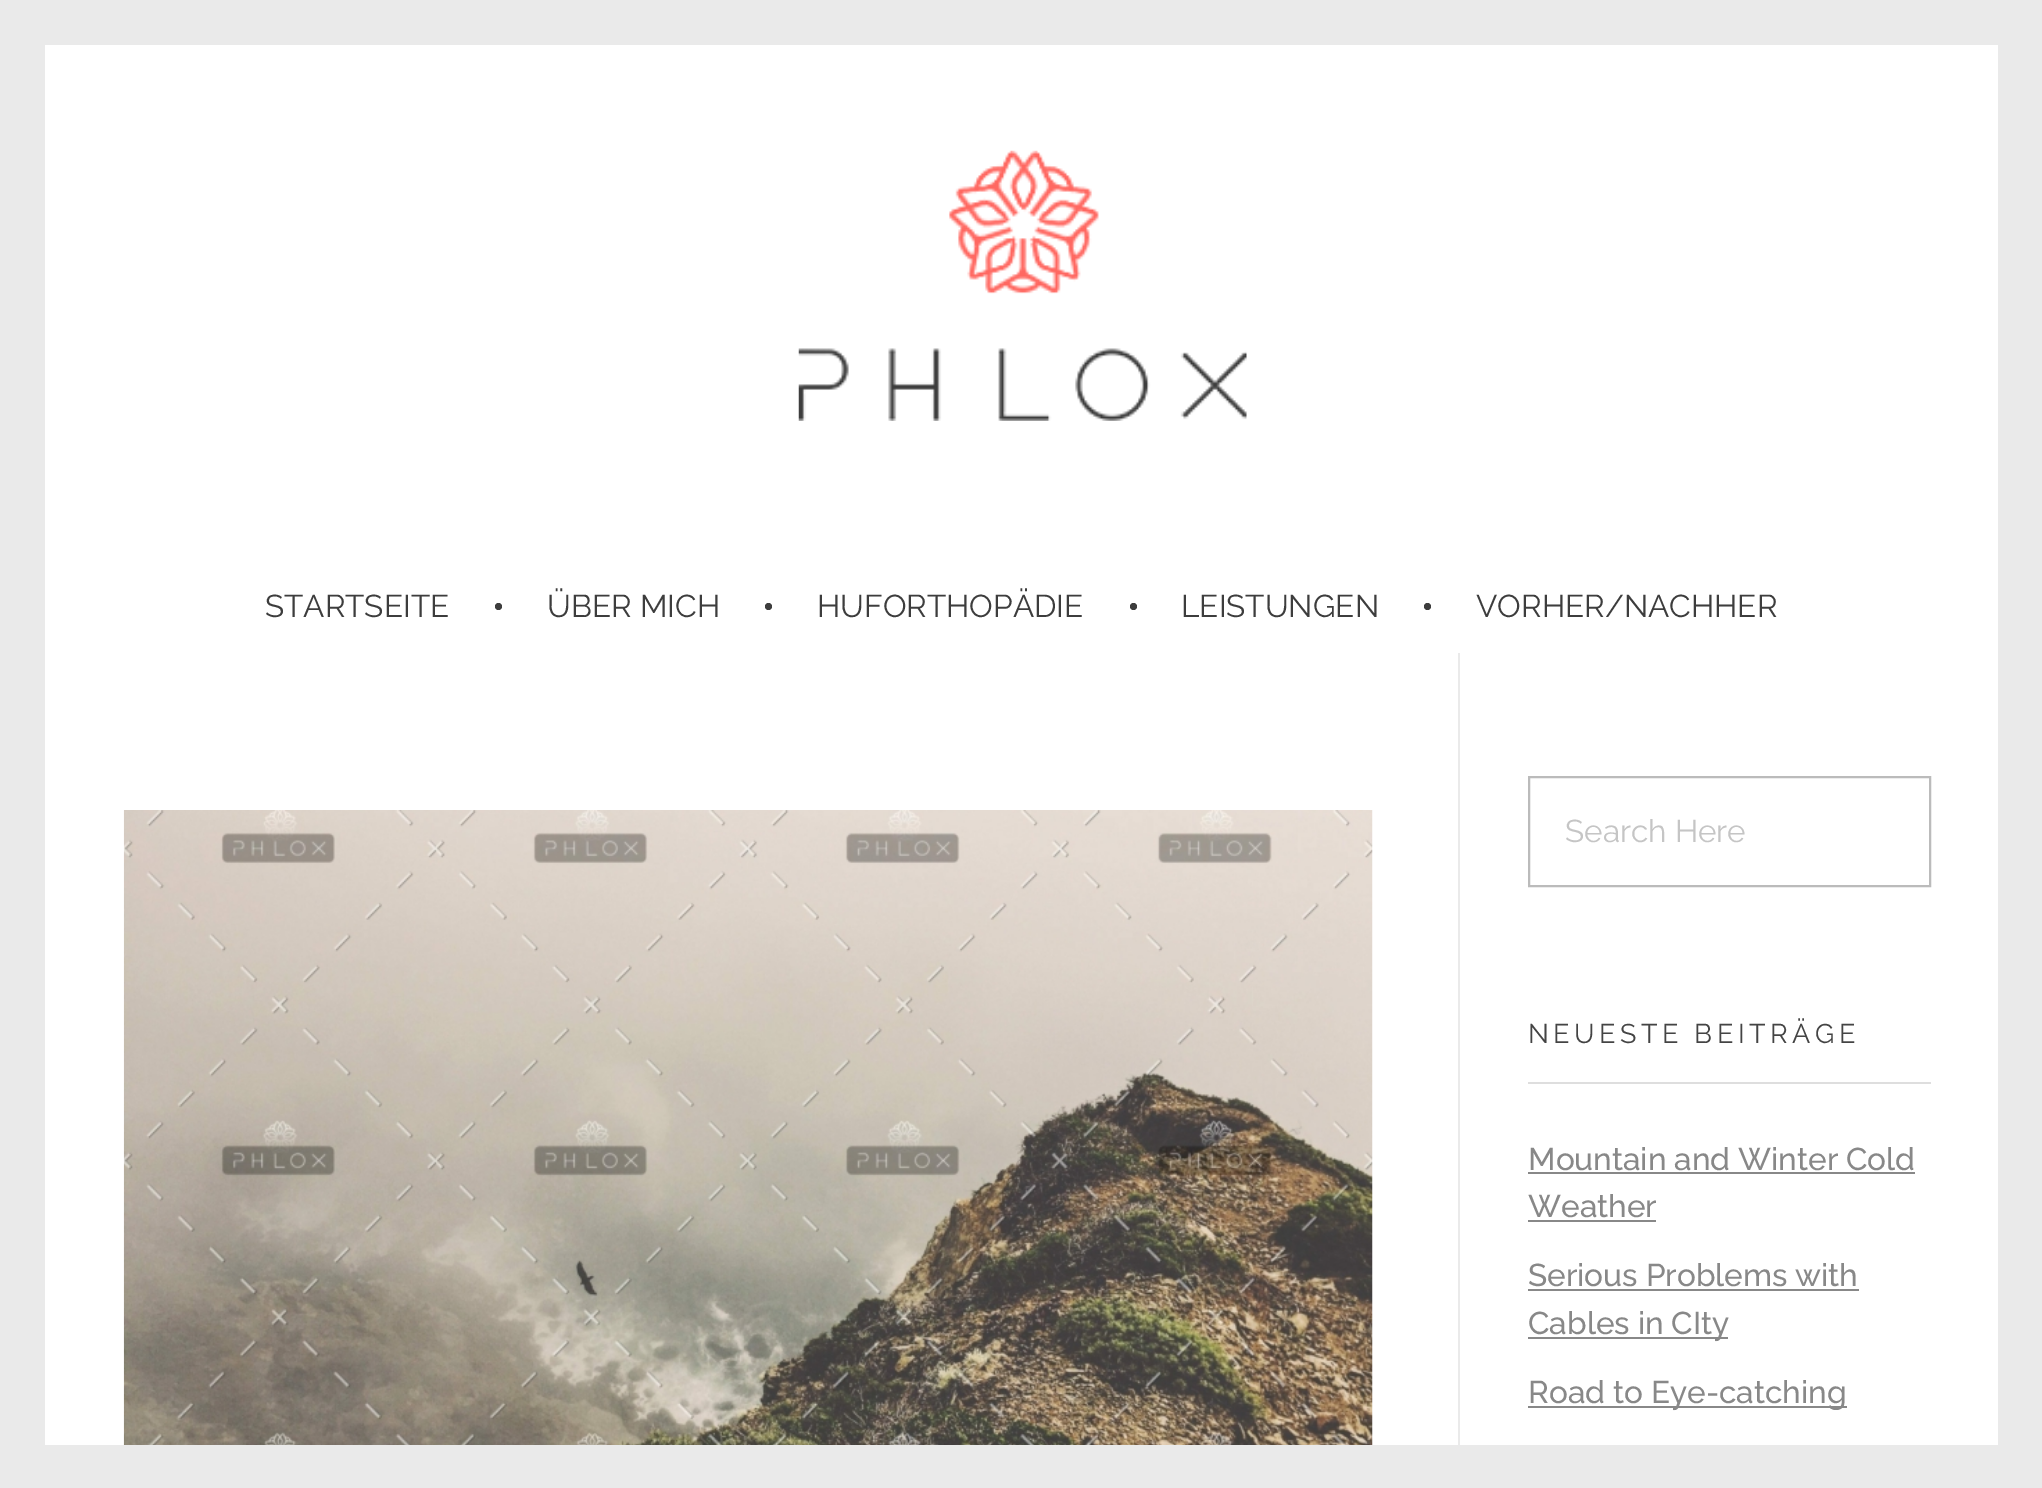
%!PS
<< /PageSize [2042 1488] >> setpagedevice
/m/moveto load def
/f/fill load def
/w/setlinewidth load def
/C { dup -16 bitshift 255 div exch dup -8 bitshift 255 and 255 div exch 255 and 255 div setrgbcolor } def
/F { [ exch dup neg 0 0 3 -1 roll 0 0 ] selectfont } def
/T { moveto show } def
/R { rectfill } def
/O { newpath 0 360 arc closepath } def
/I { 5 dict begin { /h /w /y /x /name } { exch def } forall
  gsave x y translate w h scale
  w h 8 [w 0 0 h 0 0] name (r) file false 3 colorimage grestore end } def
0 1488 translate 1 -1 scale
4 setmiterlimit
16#FFFFFF C
0 0 2042 1488 R
16#EAEAEA C
45 0 1953 45 R
0 0 45 1488 R
1998 0 44 1488 R
(1.rgb) 798 150 449 271 I
/Raleway-Regular 31.5 F
16#3D3D3D C
(STARTSEITE) 265 617 T
498.5 606.5 3.5 O f
(ÜBER MICH) 547 617 T
768.5 606.5 3.5 O f
(HUFORTHOPÄDIE) 817 617 T
1133.5 606.5 3.5 O f
(LEISTUNGEN) 1181 617 T
1427.5 606.5 3.5 O f
(VORHER/NACHHER) 1476 617 T
(2.rgb) 123 810 1250 635 I
16#EAEAEA C
1458 653 2 792 R
16#BBBBBB C
2 w
1529 777 401 109 rectstroke
16#C5C5C5 C
(Search Here) 1565 842 T
16#DEDEDE C
1528 1082 403 2 R
/Raleway-Regular 27 F
16#444444 C
1528 1043 m 4.5 0 (NEUESTE BEITRÄGE) ashow
/Raleway-Medium 31.5 F
16#888888 C
(Mountain and Winter Cold) 1528 1170 T
1528 1172 387 2 R
(Weather) 1528 1217 T
1528 1220 128 2 R
(Serious Problems with) 1528 1286 T
1528 1289 331 2 R
1528 1337 200 2 R
(Cables in CIty) 1528 1334 T
1528 1406 319 2 R
(Road to Eye-catching) 1528 1403 T
16#EAEAEA C
45 1445 1953 43 R
showpage
